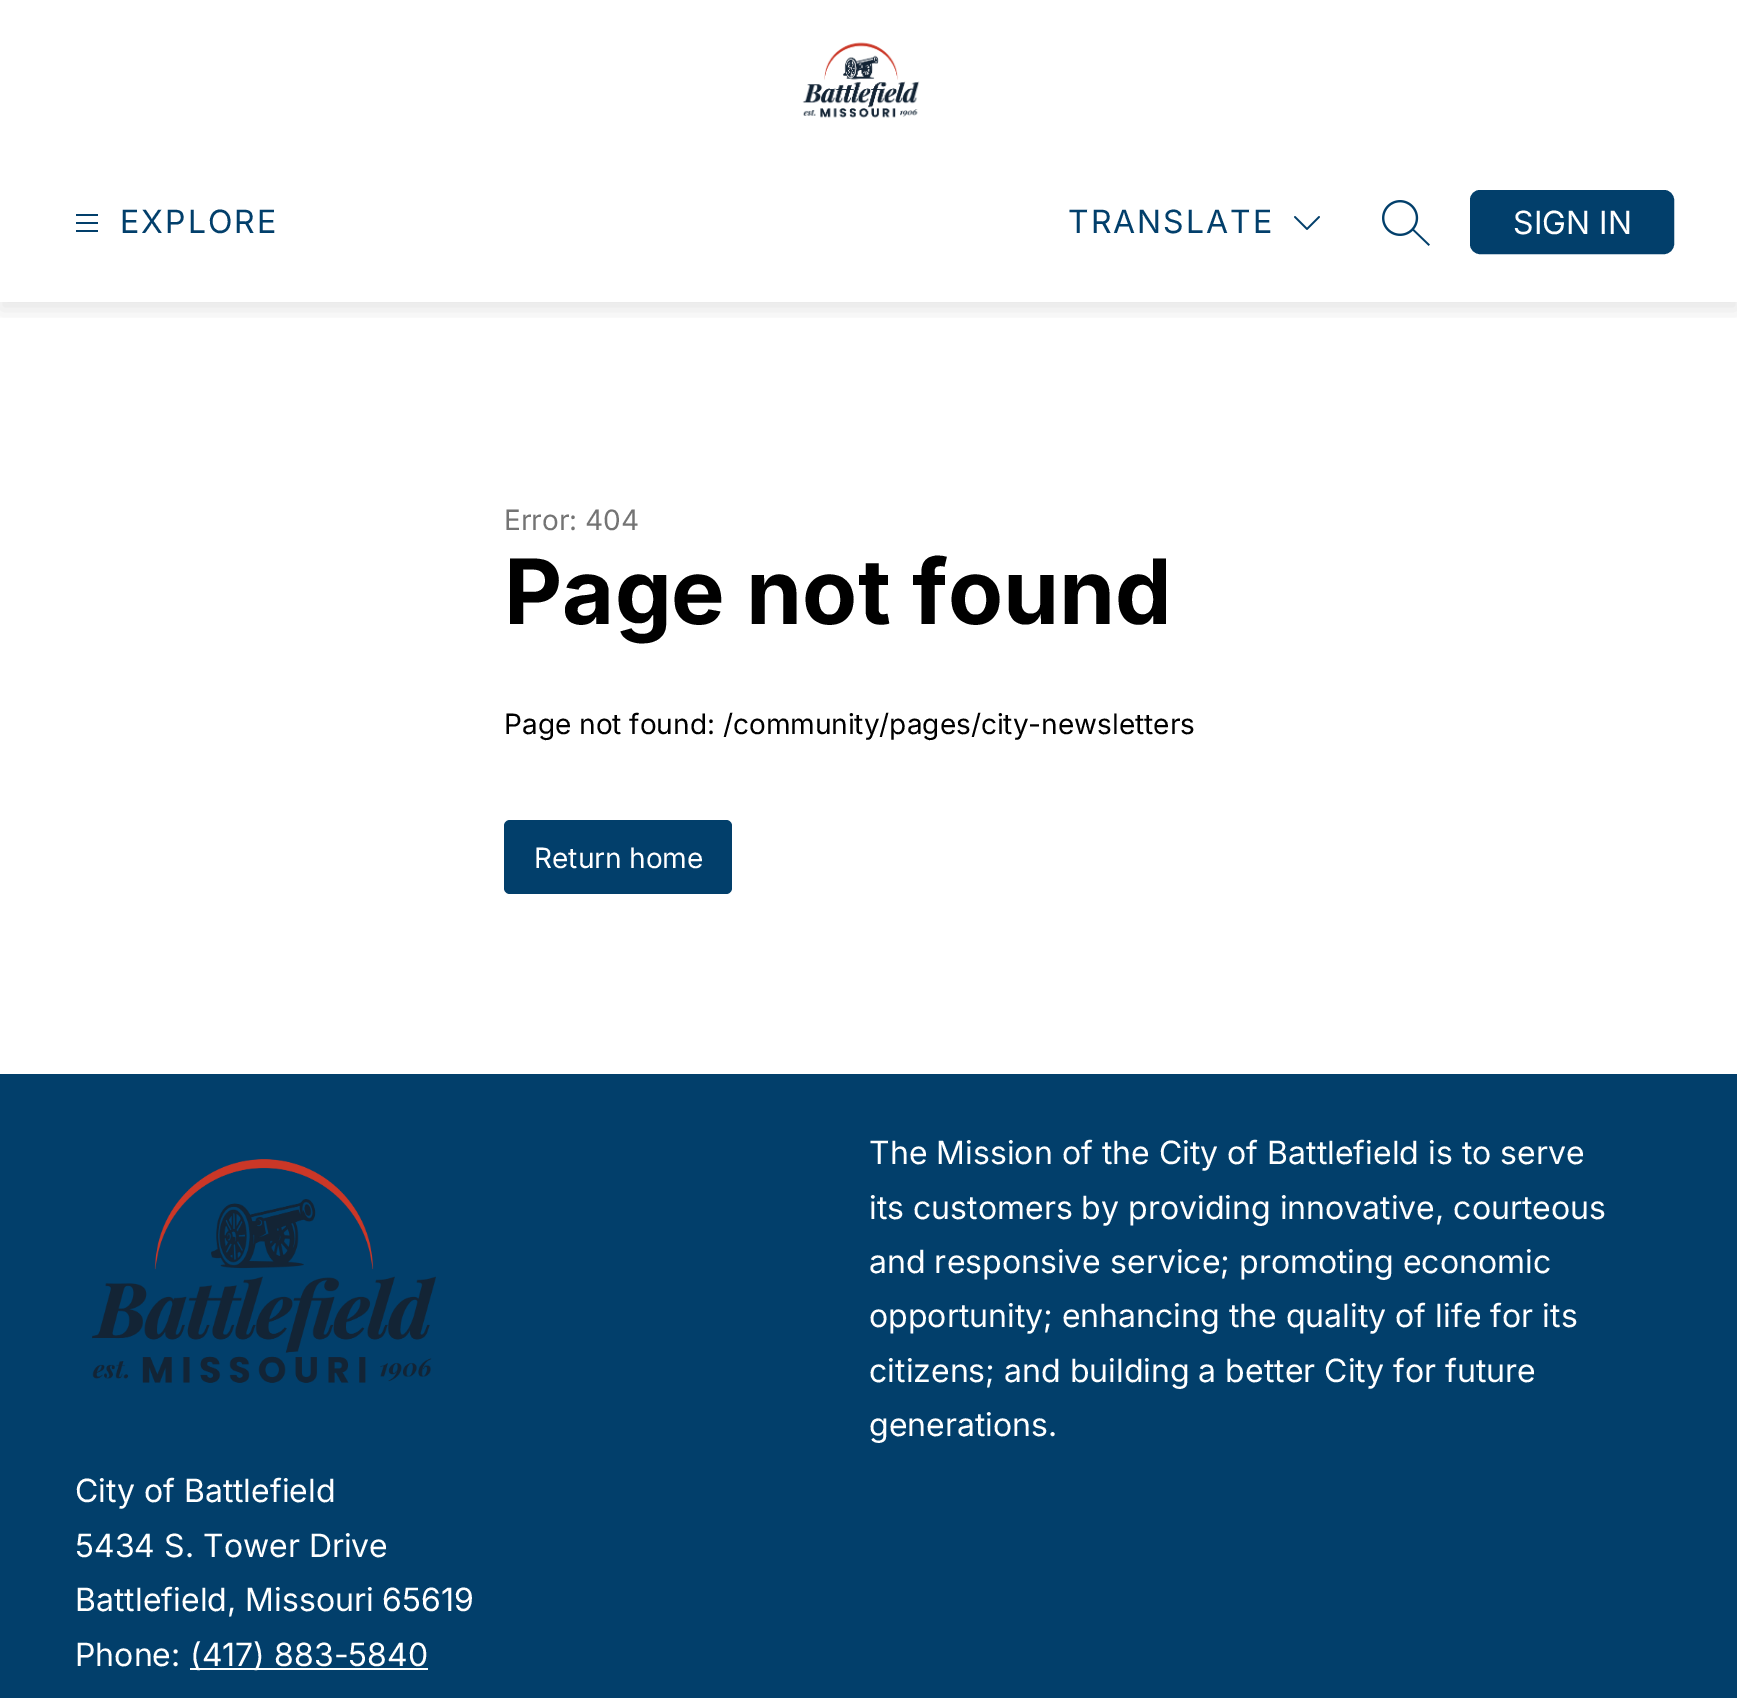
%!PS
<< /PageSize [1737 1698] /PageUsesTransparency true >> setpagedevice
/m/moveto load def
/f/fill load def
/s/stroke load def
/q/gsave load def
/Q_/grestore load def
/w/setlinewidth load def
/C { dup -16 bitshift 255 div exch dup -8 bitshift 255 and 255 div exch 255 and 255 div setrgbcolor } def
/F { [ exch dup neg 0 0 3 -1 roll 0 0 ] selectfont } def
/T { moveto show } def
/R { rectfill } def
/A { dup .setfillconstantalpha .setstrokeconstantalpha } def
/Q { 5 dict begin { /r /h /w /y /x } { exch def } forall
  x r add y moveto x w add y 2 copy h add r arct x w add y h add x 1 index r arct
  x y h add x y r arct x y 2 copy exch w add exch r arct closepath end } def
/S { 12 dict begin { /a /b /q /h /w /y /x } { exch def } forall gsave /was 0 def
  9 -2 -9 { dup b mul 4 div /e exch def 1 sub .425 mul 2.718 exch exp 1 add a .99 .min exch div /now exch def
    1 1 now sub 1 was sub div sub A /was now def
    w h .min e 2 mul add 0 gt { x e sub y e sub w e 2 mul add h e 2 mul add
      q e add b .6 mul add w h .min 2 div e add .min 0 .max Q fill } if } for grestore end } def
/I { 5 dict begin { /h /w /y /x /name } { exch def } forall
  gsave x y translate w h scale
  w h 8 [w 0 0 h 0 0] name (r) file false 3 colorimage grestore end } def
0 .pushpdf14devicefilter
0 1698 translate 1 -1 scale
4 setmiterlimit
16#FFFFFF C
0 0 1737 1698 R
q
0 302 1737 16 rectclip
16#000000 C
0 8 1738 302 0 10 .1 S
Q_
(1.rgb) 802 42 118 76 I
(2.rgb) 76 214 22 18 I
/Inter-Regular 32 F
16#023F6B C
120 233 m 2 0 (EXPLORE) ashow
1068 233 m 2 0 (TRANSLATE) ashow
(3.rgb) 1294 216 26 14 I
(4.rgb) 1382 200 48 46 I
1471 191 202 62 9 Q q f Q_
2 w
s
16#FFFFFF C
(SIGN IN) 1513 234 T
/Inter-Regular 28 F
16#747474 C
(Error: 404) 504 530 T
/Inter-Bold 90 F
16#000000 C
(Page not found) 504 624 T
/Inter-Regular 28 F
(Page not found: /community/pages/city-newsletters) 504 734 T
16#023F6B C
504 820 228 74 6 Q f
16#FFFFFF C
(Return home) 534 868 T
16#023F6B C
0 1074 1737 624 R
/Inter-Regular 32 F
16#FFFFFF C
(The Mission of the City of Battlefield is to serve) 869 1164 T
(its customers by providing innovative, courteous) 869 1219 T
(and responsive service; promoting economic) 869 1273 T
(opportunity; enhancing the quality of life for its) 869 1327 T
(citizens; and building a better City for future) 869 1382 T
(generations.) 869 1436 T
(5.rgb) 92 1159 344 224 I
(City of Battlefield) 75 1502 T
(5434 S. Tower Drive) 75 1557 T
(Battlefield, Missouri 65619) 75 1611 T
(Phone:) 75 1666 T
190 1668 238 2 R
(\(417\) 883-5840) 190 1666 T
.poppdf14devicefilter showpage
